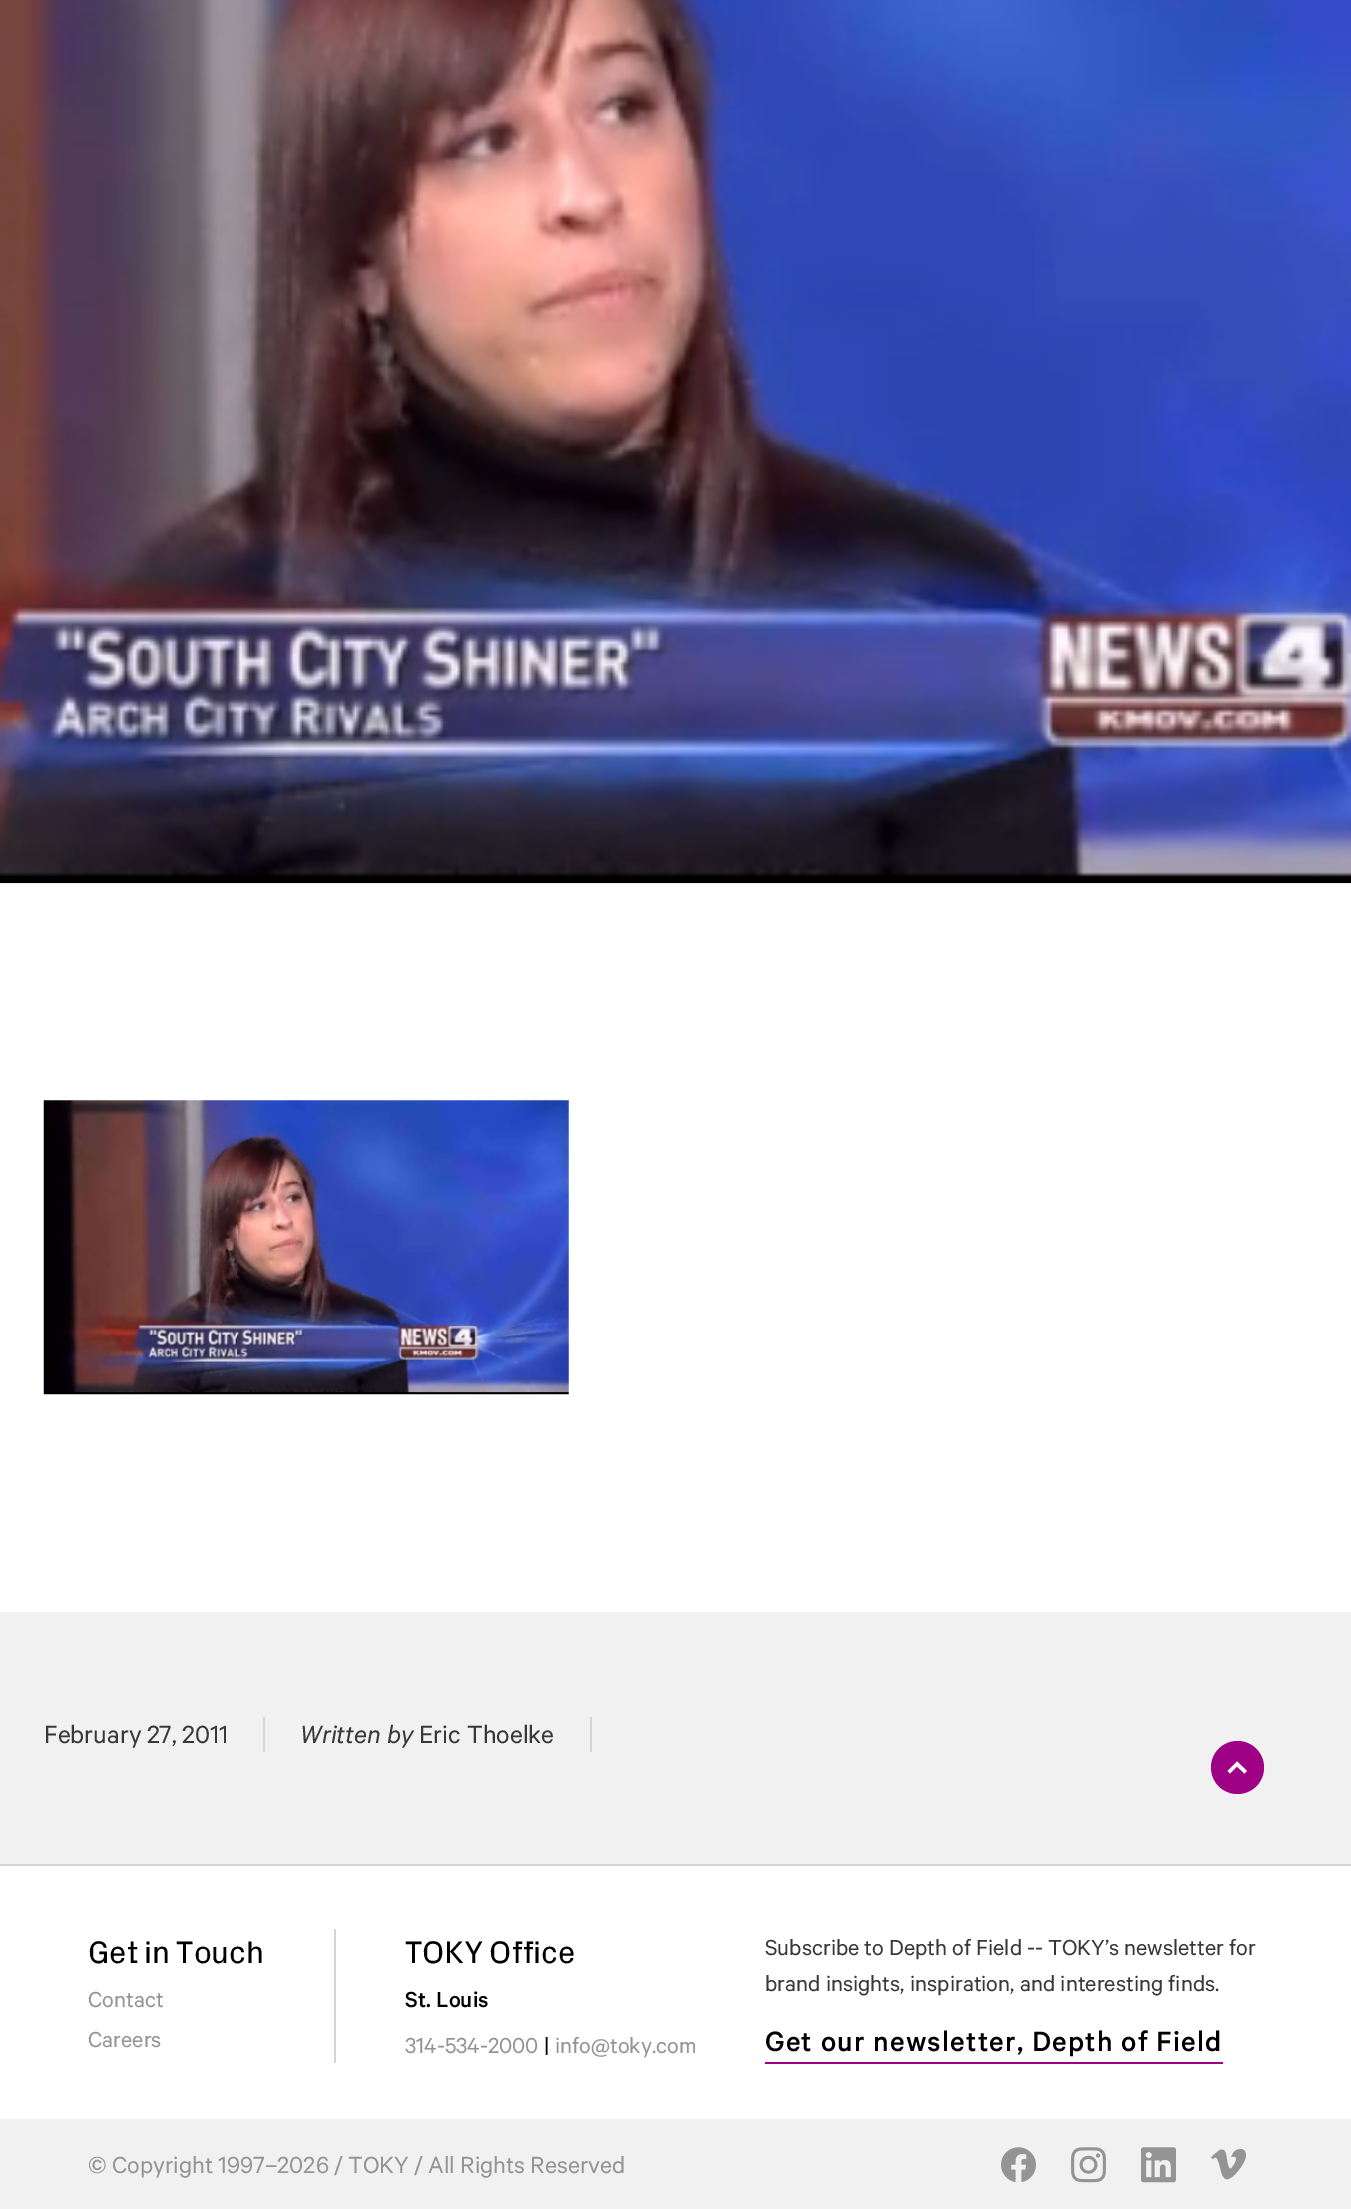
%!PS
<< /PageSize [1351 2209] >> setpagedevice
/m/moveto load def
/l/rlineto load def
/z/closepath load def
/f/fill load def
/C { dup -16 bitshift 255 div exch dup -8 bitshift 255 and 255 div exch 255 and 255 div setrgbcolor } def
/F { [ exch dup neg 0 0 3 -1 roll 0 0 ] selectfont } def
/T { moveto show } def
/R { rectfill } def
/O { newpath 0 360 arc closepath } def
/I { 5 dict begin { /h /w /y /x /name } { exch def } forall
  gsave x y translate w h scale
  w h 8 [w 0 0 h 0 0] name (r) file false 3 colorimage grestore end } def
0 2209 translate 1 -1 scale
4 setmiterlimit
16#FFFFFF C
0 0 1351 2209 R
(1.rgb) 0 0 1351 884 I
(2.rgb) 43 1100 526 295 I
16#F1F1F1 C
0 1612 1351 252 R
16#D5D5D5 C
263 1717 2 35 R
/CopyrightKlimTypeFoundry-Regular 28 F
16#383838 C
44 1743 m -1 0 32 (February 27, 2011) widthshow
16#D5D5D5 C
590 1717 2 35 R
/CopyrightKlimTypeFoundry-Italic 28 F
16#383838 C
(Written by) 300 1743 T
/CopyrightKlimTypeFoundry-Regular 28 F
(Eric Thoelke) 419 1743 T
16#9E0185 C
1237.5 1767.5 26.5 O f
16#FFFFFF C
1230 1773.5 m -2.5 -2.5 l 9.5 -9.5 l 10 9.5 l -2.5 2.5 l -7.5 -7 l z f
16#D5D5D5 C
0 1864 1351 2 R
334 1929 2 134 R
/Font-Regular 31.5 F
16#000000 C
88 1963 m -2 0 32 (Get in Touch) widthshow
/CopyrightKlimTypeFoundry-Regular 24.5 F
16#949494 C
(Contact) 88 2007 T
(Careers) 88 2047 T
/Font-Regular 31.5 F
16#000000 C
405 1963 m -2 0 32 (TOKY Office) widthshow
/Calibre-Medium 24.5 F
(St. Louis) 405 2007 T
/CopyrightKlimTypeFoundry-Regular 24.5 F
16#949494 C
(314-534-2000) 405 2053 T
16#000000 C
(|) 544 2053 T
16#949494 C
(info@toky.com) 555 2053 T
16#383838 C
765 1955 m -.25 0 32 (Subscribe to Depth of Field -- TOKY’s newsletter for) widthshow
(brand insights, inspiration, and interesting finds.) 765 1991 T
/Calibre-Medium 31.5 F
16#000000 C
765 2051 m -.5 0 32 1.15 0 (Get our newsletter, Depth of Field) awidthshow
16#9E0185 C
765 2062 458 2 R
16#F1F1F1 C
0 2119 1351 90 R
/CopyrightKlimTypeFoundry-Regular 26.25 F
16#949494 C
88 2173 m -.5 0 32 (© Copyright 1997–2026 / TOKY / All Rights Reserved) widthshow
(3.rgb) 1001 2147 35 36 I
(4.rgb) 1071 2147 35 36 I
(5.rgb) 1141 2147 35 36 I
(6.rgb) 1211 2149 35 31 I
showpage
